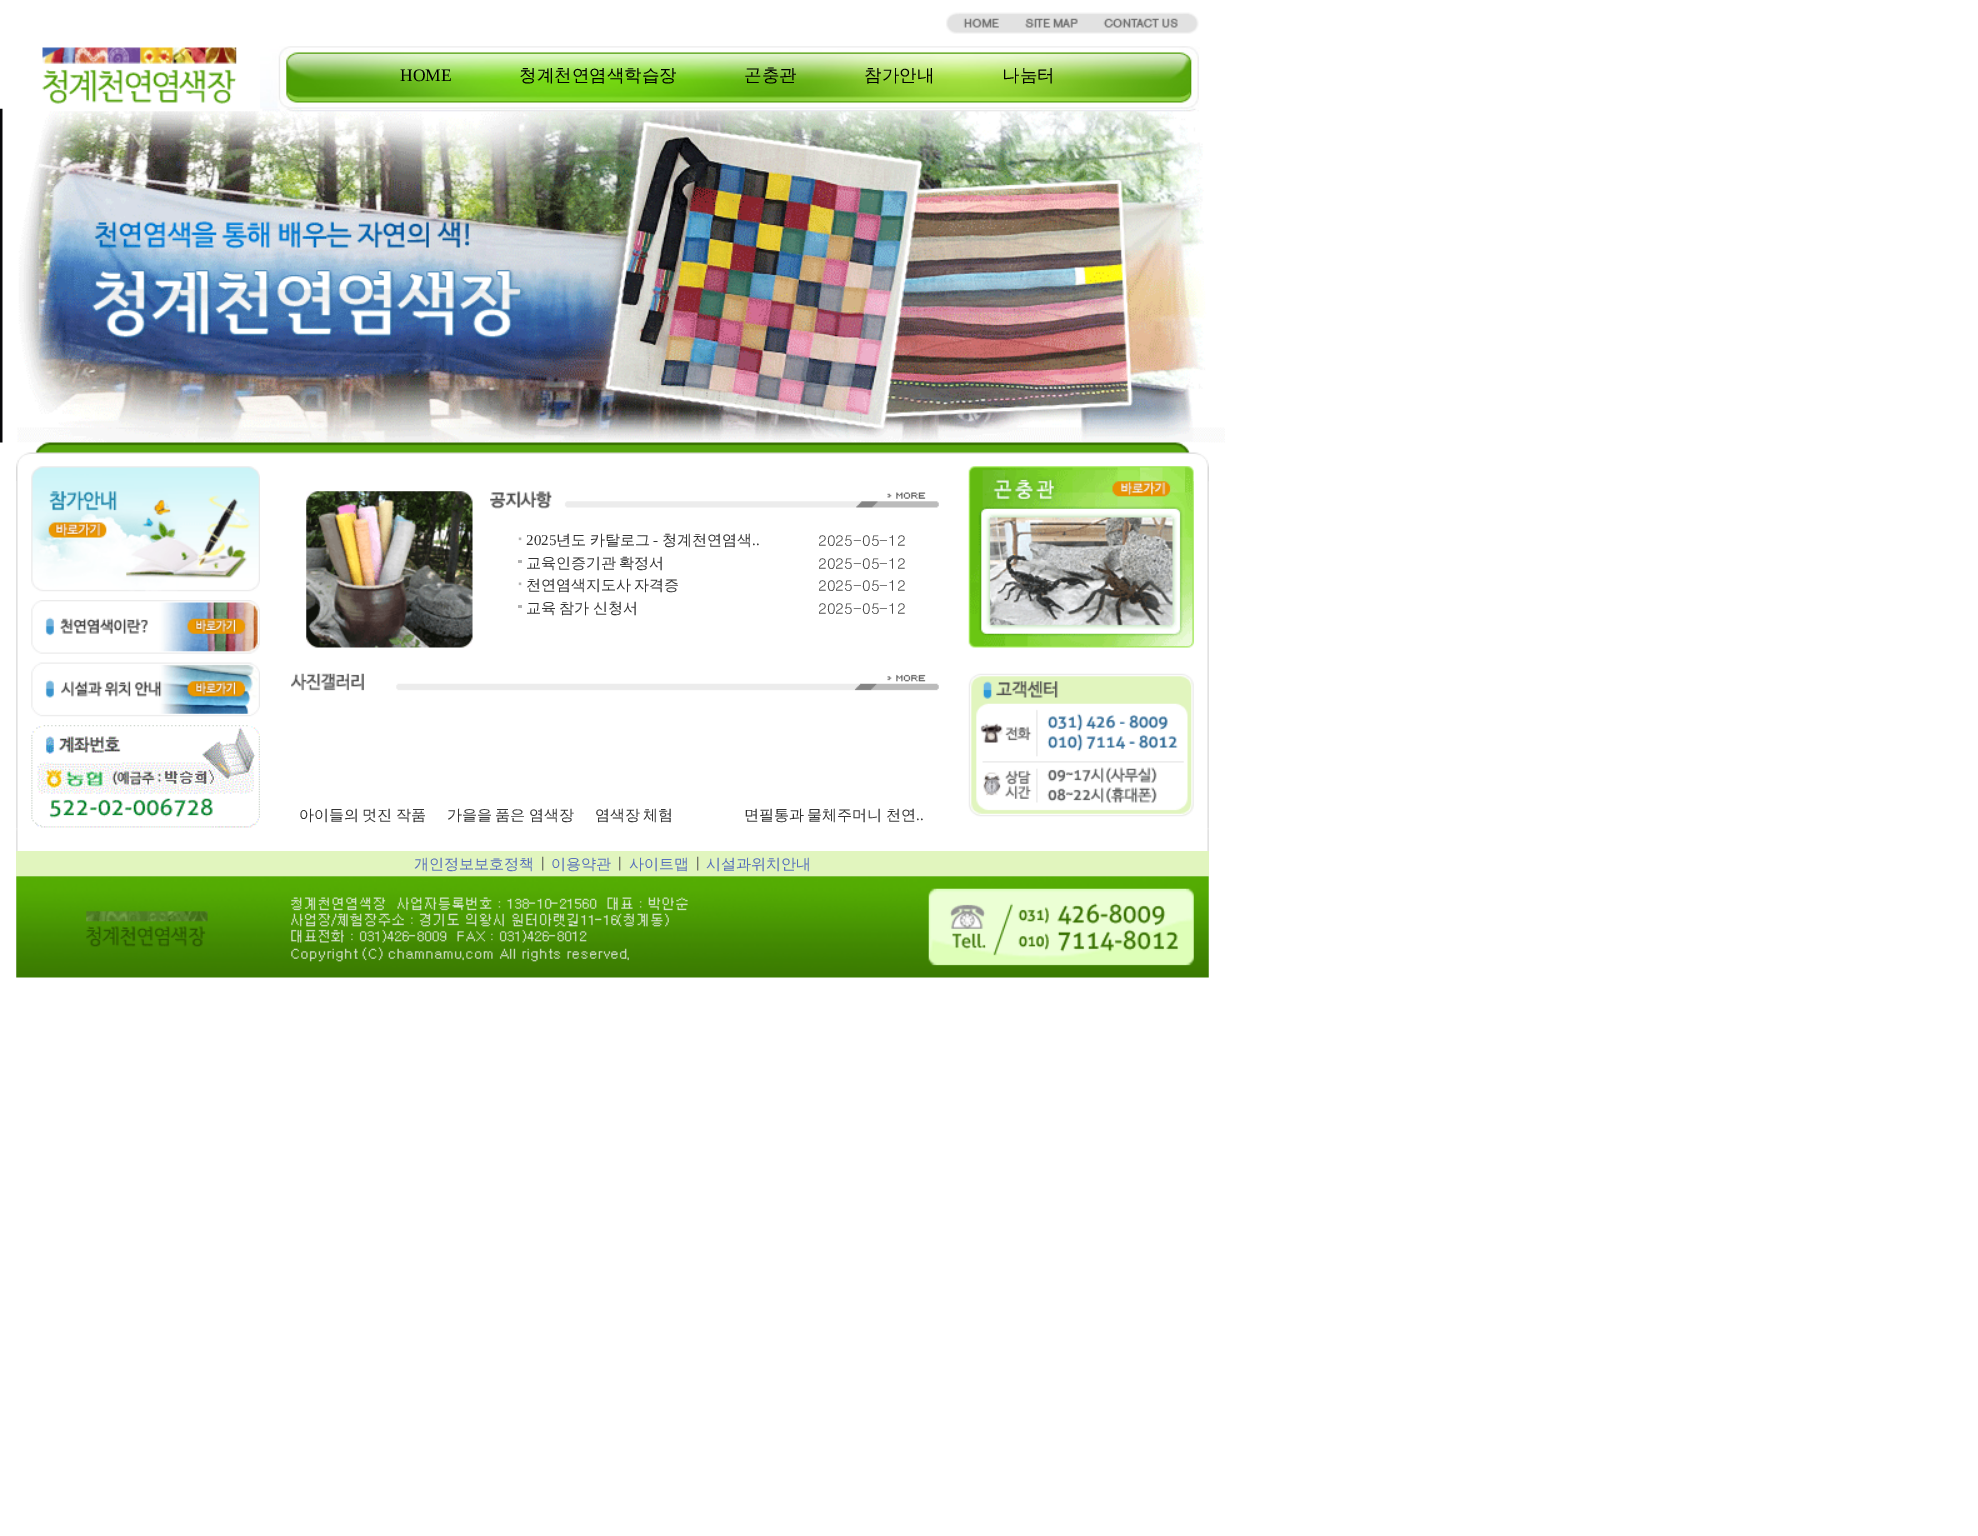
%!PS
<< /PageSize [1978 1536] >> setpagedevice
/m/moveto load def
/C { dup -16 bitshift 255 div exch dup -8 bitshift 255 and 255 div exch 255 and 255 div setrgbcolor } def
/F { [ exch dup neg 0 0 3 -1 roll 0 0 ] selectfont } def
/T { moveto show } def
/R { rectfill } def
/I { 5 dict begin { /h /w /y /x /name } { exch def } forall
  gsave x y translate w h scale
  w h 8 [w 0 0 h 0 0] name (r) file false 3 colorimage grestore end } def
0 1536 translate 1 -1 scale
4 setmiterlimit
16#FFFFFF C
0 0 1978 1536 R
(1.rgb) 260 46 940 63 I
(2.rgb) 946 12 253 22 I
(3.rgb) 42 47 195 57 I
/LiberationSerif-Regular 17.5 F
16#000000 C
(HOME) 400 81 T
/WenQuanYiZenHei-Medium 17.5 F
(청계천연염색학습장) 519 81 T
(곤충관) 744 81 T
(참가안내) 864 81 T
(나눔터) 1002 81 T
(4.rgb) 0 108 1225 335 I
(5.rgb) 16 442 1193 24 I
(6.rgb) 16 466 2 363 I
(7.rgb) 16 466 2 15 I
(8.rgb) 31 466 229 126 I
(9.rgb) 31 600 229 54 I
(10.rgb) 31 662 229 55 I
(11.rgb) 31 725 229 103 I
(12.rgb) 306 491 167 157 I
(13.rgb) 490 491 449 18 I
(14.rgb) 518 537 4 4 I
/LiberationSerif-Regular 15 F
16#333333 C
(2025) 526 545 T
/WenQuanYiZenHei-Medium 15 F
(년도 카탈로그) 556 545 T
/LiberationSerif-Regular 15 F
(-) 653 545 T
/WenQuanYiZenHei-Medium 15 F
(청계천연염색) 662 545 T
/LiberationSerif-Regular 15 F
(..) 752 545 T
/Dotum-Regular 15 F
16#4B4B4B C
(2025-05-12) 818 546 T
16#B1B1B1 C
518 560 4 3 R
/WenQuanYiZenHei-Medium 15 F
16#333333 C
526 568 m -1 0 32 (교육인증기관 확정서) widthshow
/Dotum-Regular 15 F
16#4B4B4B C
(2025-05-12) 818 569 T
(14.rgb) 518 582 4 4 I
/WenQuanYiZenHei-Medium 15 F
16#333333 C
526 590 m -1 0 32 (천연염색지도사 자격증) widthshow
/Dotum-Regular 15 F
16#4B4B4B C
(2025-05-12) 818 591 T
16#B1B1B1 C
518 605 4 3 R
/WenQuanYiZenHei-Medium 15 F
16#333333 C
526 613 m -1 0 32 (교육 참가 신청서) widthshow
/Dotum-Regular 15 F
16#4B4B4B C
(2025-05-12) 818 614 T
(15.rgb) 291 673 648 18 I
/WenQuanYiZenHei-Medium 15 F
16#333333 C
299 820 m -1 0 32 (아이들의 멋진 작품) widthshow
447 820 m -1 0 32 (가을을 품은 염색장) widthshow
595 820 m -1 0 32 (염색장 체험) widthshow
744 820 m -1 0 32 (면필통과 물체주머니 천연) widthshow
/LiberationSerif-Regular 15 F
(..) 916 820 T
(16.rgb) 968 466 226 182 I
(17.rgb) 968 673 226 144 I
(18.rgb) 1207 466 2 363 I
(19.rgb) 1193 466 16 16 I
(20.rgb) 16 829 2 22 I
(21.rgb) 1207 829 2 22 I
16#E1F5BE C
16 851 1193 25 R
/WenQuanYiZenHei-Medium 15 F
16#5870BB C
(개인정보보호정책) 414 869 T
/Dotum-Regular 15 F
16#4B4B4B C
(|) 539 869 T
/WenQuanYiZenHei-Medium 15 F
16#5870BB C
(이용약관) 551 869 T
/Dotum-Regular 15 F
16#4B4B4B C
(|) 616 869 T
/WenQuanYiZenHei-Medium 15 F
16#5870BB C
(사이트맵) 629 869 T
/Dotum-Regular 15 F
16#4B4B4B C
(|) 694 869 T
/WenQuanYiZenHei-Medium 15 F
16#5870BB C
(시설과위치안내) 706 869 T
(22.rgb) 16 876 1193 102 I
showpage
